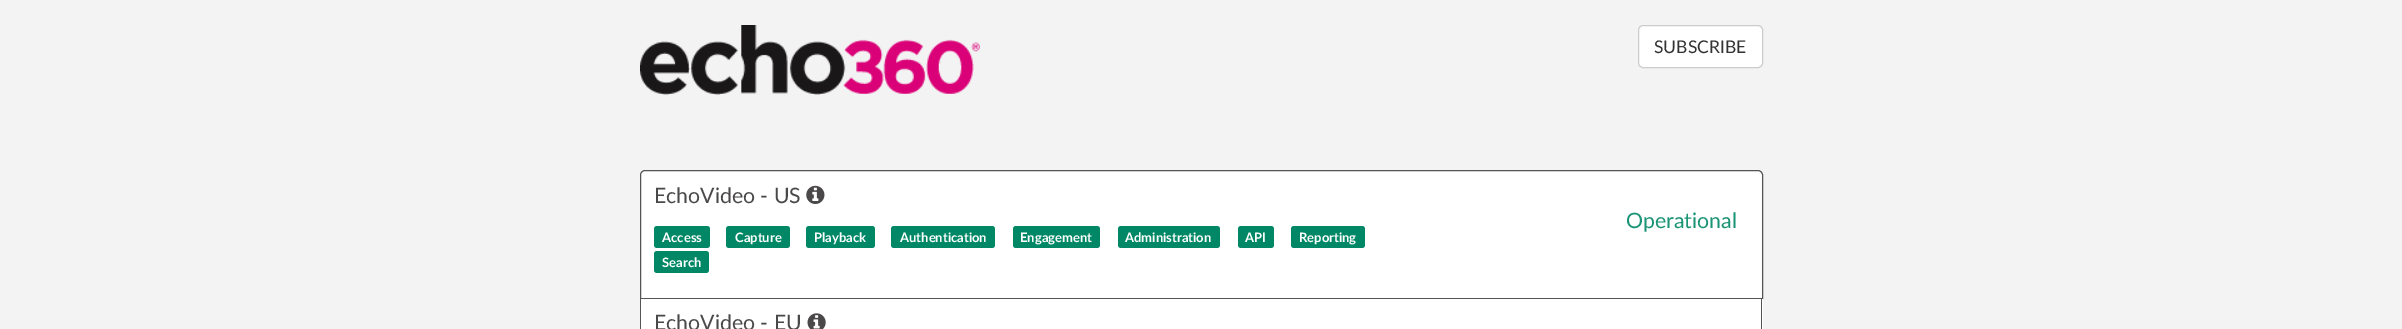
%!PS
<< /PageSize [2402 329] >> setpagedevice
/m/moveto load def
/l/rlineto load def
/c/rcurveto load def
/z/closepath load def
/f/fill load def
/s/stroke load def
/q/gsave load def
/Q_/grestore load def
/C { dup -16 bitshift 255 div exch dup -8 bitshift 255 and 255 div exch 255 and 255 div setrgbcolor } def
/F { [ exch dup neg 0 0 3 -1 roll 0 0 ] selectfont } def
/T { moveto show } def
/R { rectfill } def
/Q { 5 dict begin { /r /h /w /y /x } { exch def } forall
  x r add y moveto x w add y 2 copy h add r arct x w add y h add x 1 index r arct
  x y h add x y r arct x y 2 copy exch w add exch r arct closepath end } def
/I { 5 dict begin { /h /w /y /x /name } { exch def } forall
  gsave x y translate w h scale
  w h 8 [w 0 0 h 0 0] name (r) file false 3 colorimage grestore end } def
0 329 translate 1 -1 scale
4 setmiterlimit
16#F3F3F3 C
0 0 2402 329 R
(1.rgb) 640 25 340 70 I
16#FFFFFF C
1638.5 25.5 124 42 4.5 Q q f Q_
16#CCCCCC C
s
/Lato-Regular 17.5 F
16#333333 C
(SUBSCRIBE) 1654 53 T
16#FFFFFF C
645 170.5 m 1113 0 l 2.5 0 4.5 2 4.5 4.5 c 0 123.5 l -1122 0 l 0 -123.5 l 0 -2.5 2 -4.5 4.5 -4.5 c z q f Q_
16#545454 C
s
/Lato-Regular 21.25 F
16#4A4848 C
(EchoVideo - US) 654 203 T
(2.rgb) 806 185 19 19 I
16#008866 C
654 226 56 22 3 Q f
/Lato-Bold 13 F
16#FFFFFF C
(Access) 662 242 T
16#008866 C
726 226 64 22 3 Q f
16#FFFFFF C
(Capture) 735 242 T
16#008866 C
806 226 69 22 3 Q f
16#FFFFFF C
(Playback) 814 242 T
16#008866 C
891 226 104 22 3 Q f
16#FFFFFF C
(Authentication) 900 242 T
16#008866 C
1013 226 87 22 3 Q f
16#FFFFFF C
(Engagement) 1020 242 T
16#008866 C
1118 226 102 22 3 Q f
16#FFFFFF C
(Administration) 1125 242 T
16#008866 C
1238 226 36 22 3 Q f
16#FFFFFF C
(API) 1245 242 T
16#008866 C
1291 226 74 22 3 Q f
16#FFFFFF C
(Reporting) 1299 242 T
16#008866 C
654 251 55 22 3 Q f
16#FFFFFF C
(Search) 662 267 T
/Lato-Regular 21.25 F
16#1A9475 C
(Operational) 1626 228 T
16#FFFFFF C
641 299 1122 30 R
16#545454 C
1761 299 1 30 R
640 299 1 30 R
16#4A4848 C
(EchoVideo - EU) 654 330 T
(3.rgb) 807 313 19 16 I
showpage
